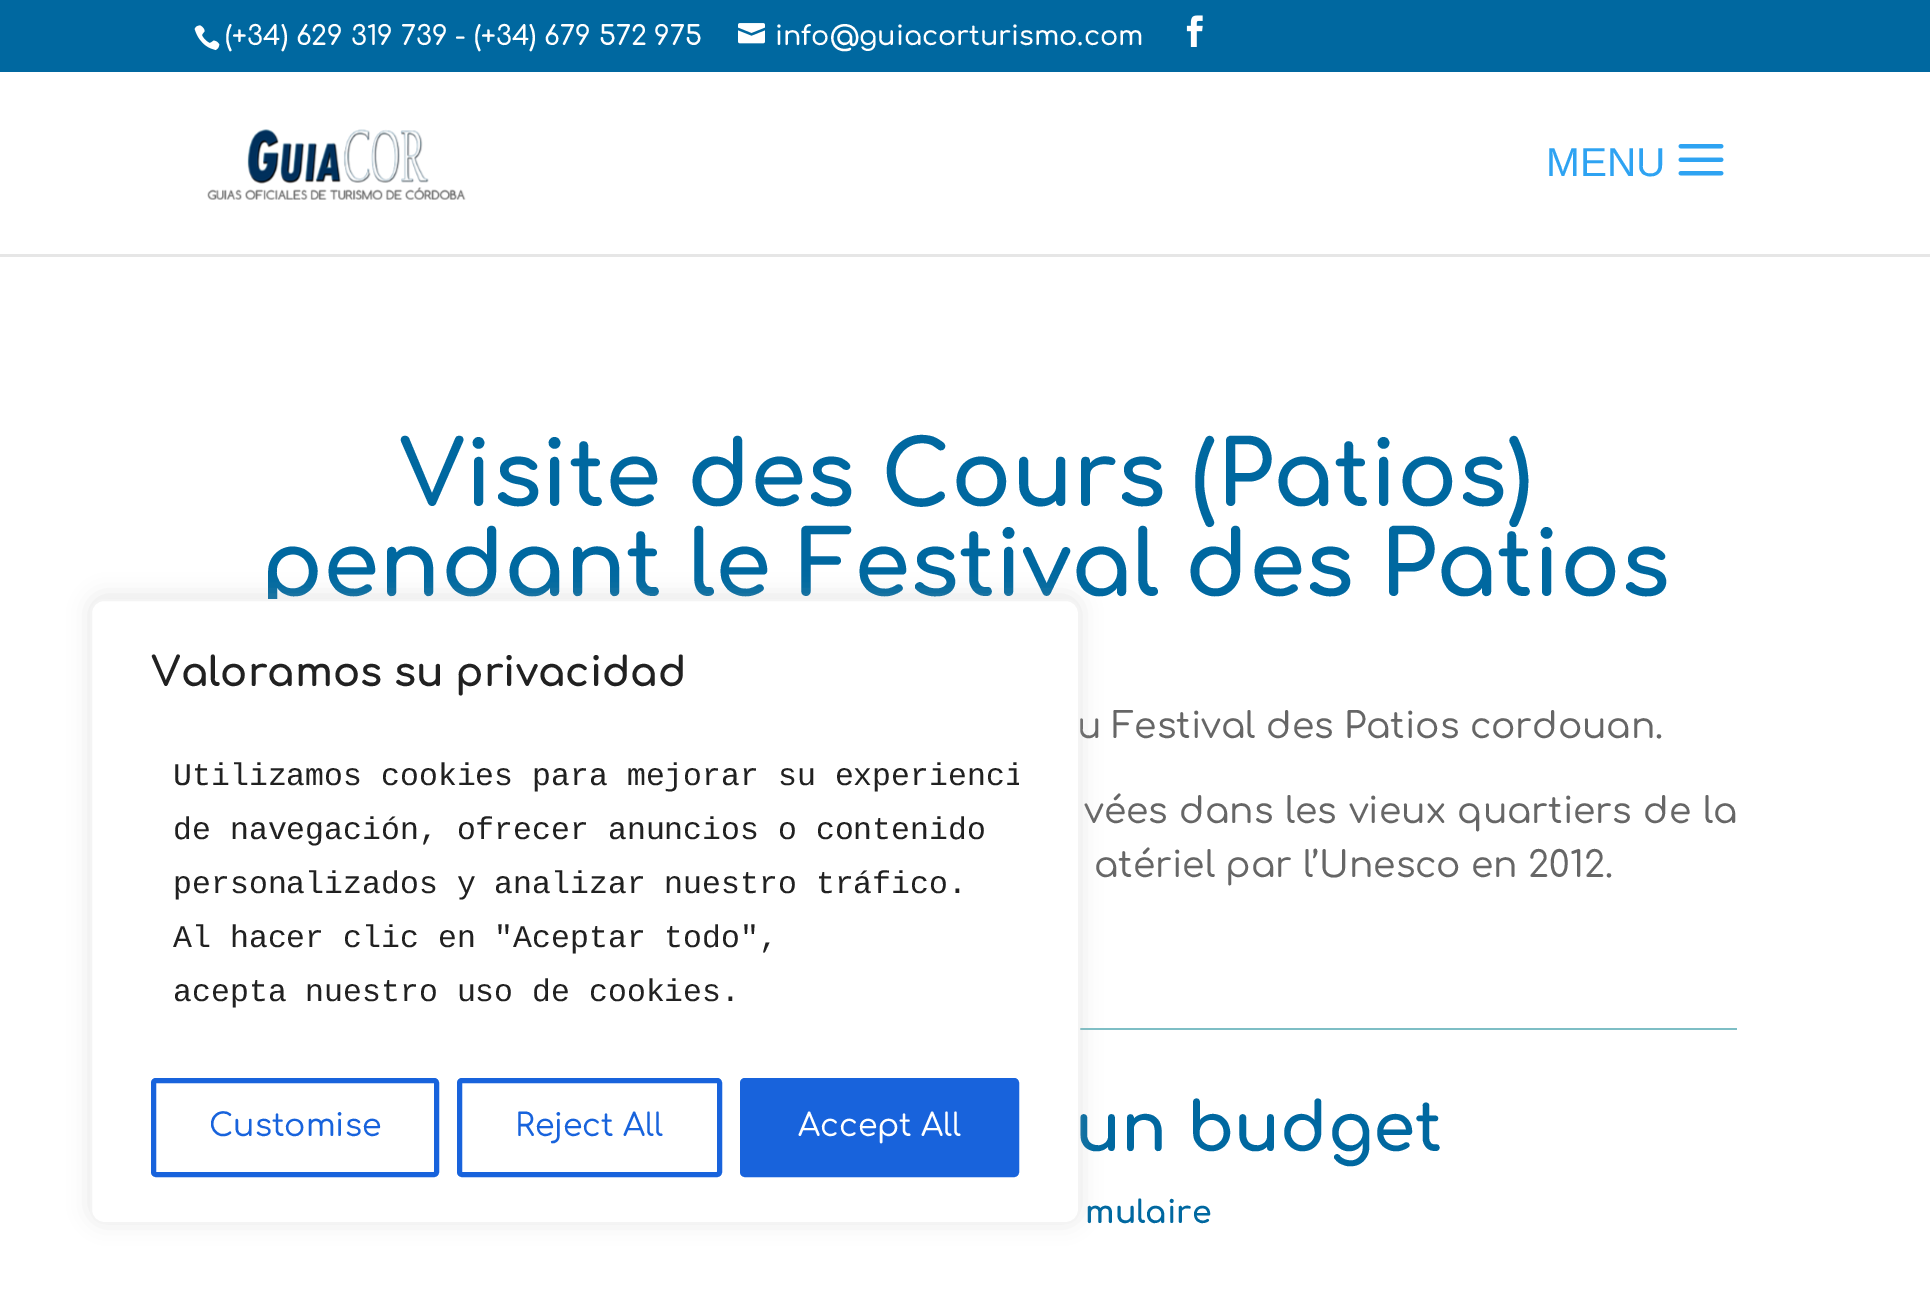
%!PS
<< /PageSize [1930 1314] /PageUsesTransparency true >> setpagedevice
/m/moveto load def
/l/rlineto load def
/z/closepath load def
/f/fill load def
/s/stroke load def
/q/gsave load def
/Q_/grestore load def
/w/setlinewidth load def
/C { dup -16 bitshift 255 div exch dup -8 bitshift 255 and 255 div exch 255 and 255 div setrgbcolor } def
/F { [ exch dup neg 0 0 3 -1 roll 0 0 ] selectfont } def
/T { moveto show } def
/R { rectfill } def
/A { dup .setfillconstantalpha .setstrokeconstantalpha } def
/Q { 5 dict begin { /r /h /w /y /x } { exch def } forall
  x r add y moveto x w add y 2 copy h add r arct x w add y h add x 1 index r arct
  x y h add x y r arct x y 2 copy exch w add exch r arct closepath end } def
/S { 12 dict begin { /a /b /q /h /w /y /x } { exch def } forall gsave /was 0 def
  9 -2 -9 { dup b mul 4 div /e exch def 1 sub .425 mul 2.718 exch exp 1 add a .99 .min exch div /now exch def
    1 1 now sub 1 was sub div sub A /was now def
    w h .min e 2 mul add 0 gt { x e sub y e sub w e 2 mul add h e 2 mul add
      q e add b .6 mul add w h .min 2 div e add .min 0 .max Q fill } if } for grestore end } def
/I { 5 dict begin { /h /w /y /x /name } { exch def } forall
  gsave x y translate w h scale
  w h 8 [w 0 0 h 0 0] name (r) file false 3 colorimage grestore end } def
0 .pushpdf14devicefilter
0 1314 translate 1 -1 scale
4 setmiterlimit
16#FFFFFF C
0 0 1930 1314 R
16#0068A0 C
0 0 1930 72 R
(1.rgb) 194 25 26 26 I
/Comfortaa-SemiBold 27 F
16#FFFFFF C
(\(+34\) 629 319 739 - \(+34\) 679 572 975) 225 45 T
(2.rgb) 738 23 27 21 I
(info@guiacorturismo.com) 775 45 T
(3.rgb) 1186 15 17 32 I
16#E6E6E6 C
0 254 m 0 3 l 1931 0 l 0 -183 l -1 0 l 0 180 l z f
(4.rgb) 207 129 259 71 I
/LiberationSans-Regular 40.5 F
16#2EA3F2 C
(MENU) 1546 176 T
(5.rgb) 1678 144 46 32 I
/Comfortaa-Bold 90 F
16#0068A0 C
(Visite des Cours \(Patios\)) 399 506 T
(pendant le Festival des Patios) 260 596 T
/Comfortaa-Medium 36 F
16#666666 C
(u Festival des Patios cordouan.) 1077 738 T
1084 823 m 1.25 0 32 (vées dans les vieux quartiers de la) widthshow
(atériel par l’Unesco en 2012.) 1094 877 T
16#7EBEC5 C
1080 1028 657 2 R
/Comfortaa-Bold 67.5 F
16#0068A0 C
(un budget) 1075 1151 T
/Comfortaa-Bold 31.5 F
(mulaire) 1085 1223 T
16#ACABAB C
90 596 990 626 14 11 .3 S
16#FFFFFF C
91 600 988 623 13 Q q f Q_
16#F4F4F4 C
2 w
s
/Comfortaa-Bold 40.5 F
16#212121 C
(Valoramos su privacidad) 151 686 T
q
151 727 868 315 rectclip
/LiberationMono-Regular 31.5 F
(Utilizamos cookies para mejorar su experienci) 173 785 T
Q_
/LiberationMono-Regular 31.5 F
(de navegación, ofrecer anuncios o contenido) 173 839 T
(personalizados y analizar nuestro tráfico.) 173 893 T
(Al hacer clic en "Aceptar todo",) 173 947 T
(acepta nuestro uso de cookies.) 173 1001 T
16#1863DC C
5 w
153.5 1080.5 283 94 2.5 Q s
/Comfortaa-Medium 31.5 F
(Customise) 209 1136 T
459.5 1080.5 260 94 2.5 Q s
(Reject All) 515 1136 T
742.5 1080.5 274 94 2.5 Q q f Q_
s
16#FFFFFF C
(Accept All) 798 1136 T
.poppdf14devicefilter showpage
